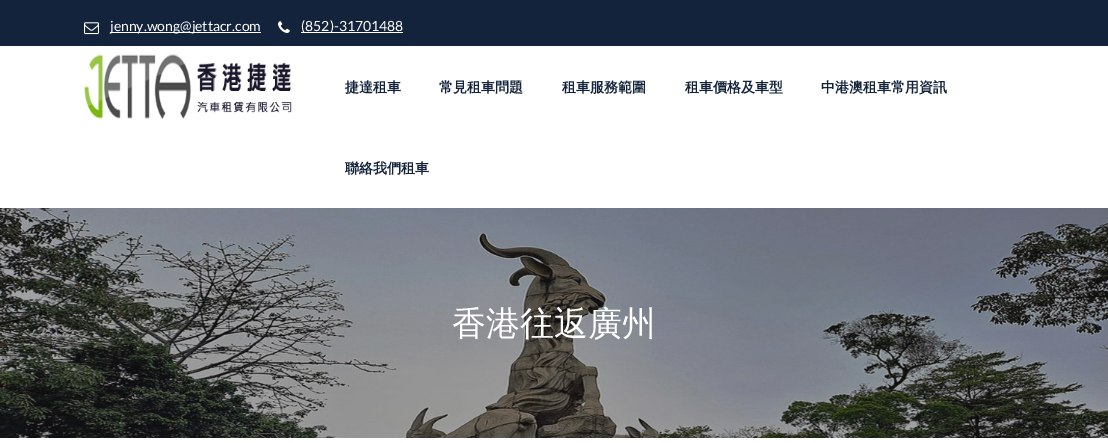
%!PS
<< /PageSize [1108 443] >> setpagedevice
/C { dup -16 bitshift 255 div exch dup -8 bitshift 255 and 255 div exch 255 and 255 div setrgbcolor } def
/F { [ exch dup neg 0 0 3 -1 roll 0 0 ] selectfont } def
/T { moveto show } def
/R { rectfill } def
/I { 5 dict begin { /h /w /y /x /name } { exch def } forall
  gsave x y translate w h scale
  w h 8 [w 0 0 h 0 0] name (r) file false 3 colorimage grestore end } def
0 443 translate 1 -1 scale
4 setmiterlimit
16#FFFFFF C
0 0 1108 443 R
16#13233B C
0 0 1108 46 R
(1.rgb) 84 22 15 13 I
16#FFFFFF C
110 32 151 1 R
/Lato-Regular 14 F
(jenny.wong@jettacr.com) 110 31 T
(2.rgb) 278 21 12 12 I
301 32 102 1 R
(\(852\)-31701488) 301 31 T
(3.rgb) 84 54 208 65 I
/WenQuanYiZenHei-Bold 14 F
16#13233B C
(捷達租車) 345 92 T
(常見租車問題) 439 92 T
(租車服務範圍) 562 92 T
(租車價格及車型) 685 92 T
(中港澳租車常用資訊) 821 92 T
(聯絡我們租車) 345 173 T
(4.rgb) 0 208 1108 230 I
/WenQuanYiZenHei-Medium 34 F
16#FFFFFF C
(香港往返廣州) 452 335 T
showpage
